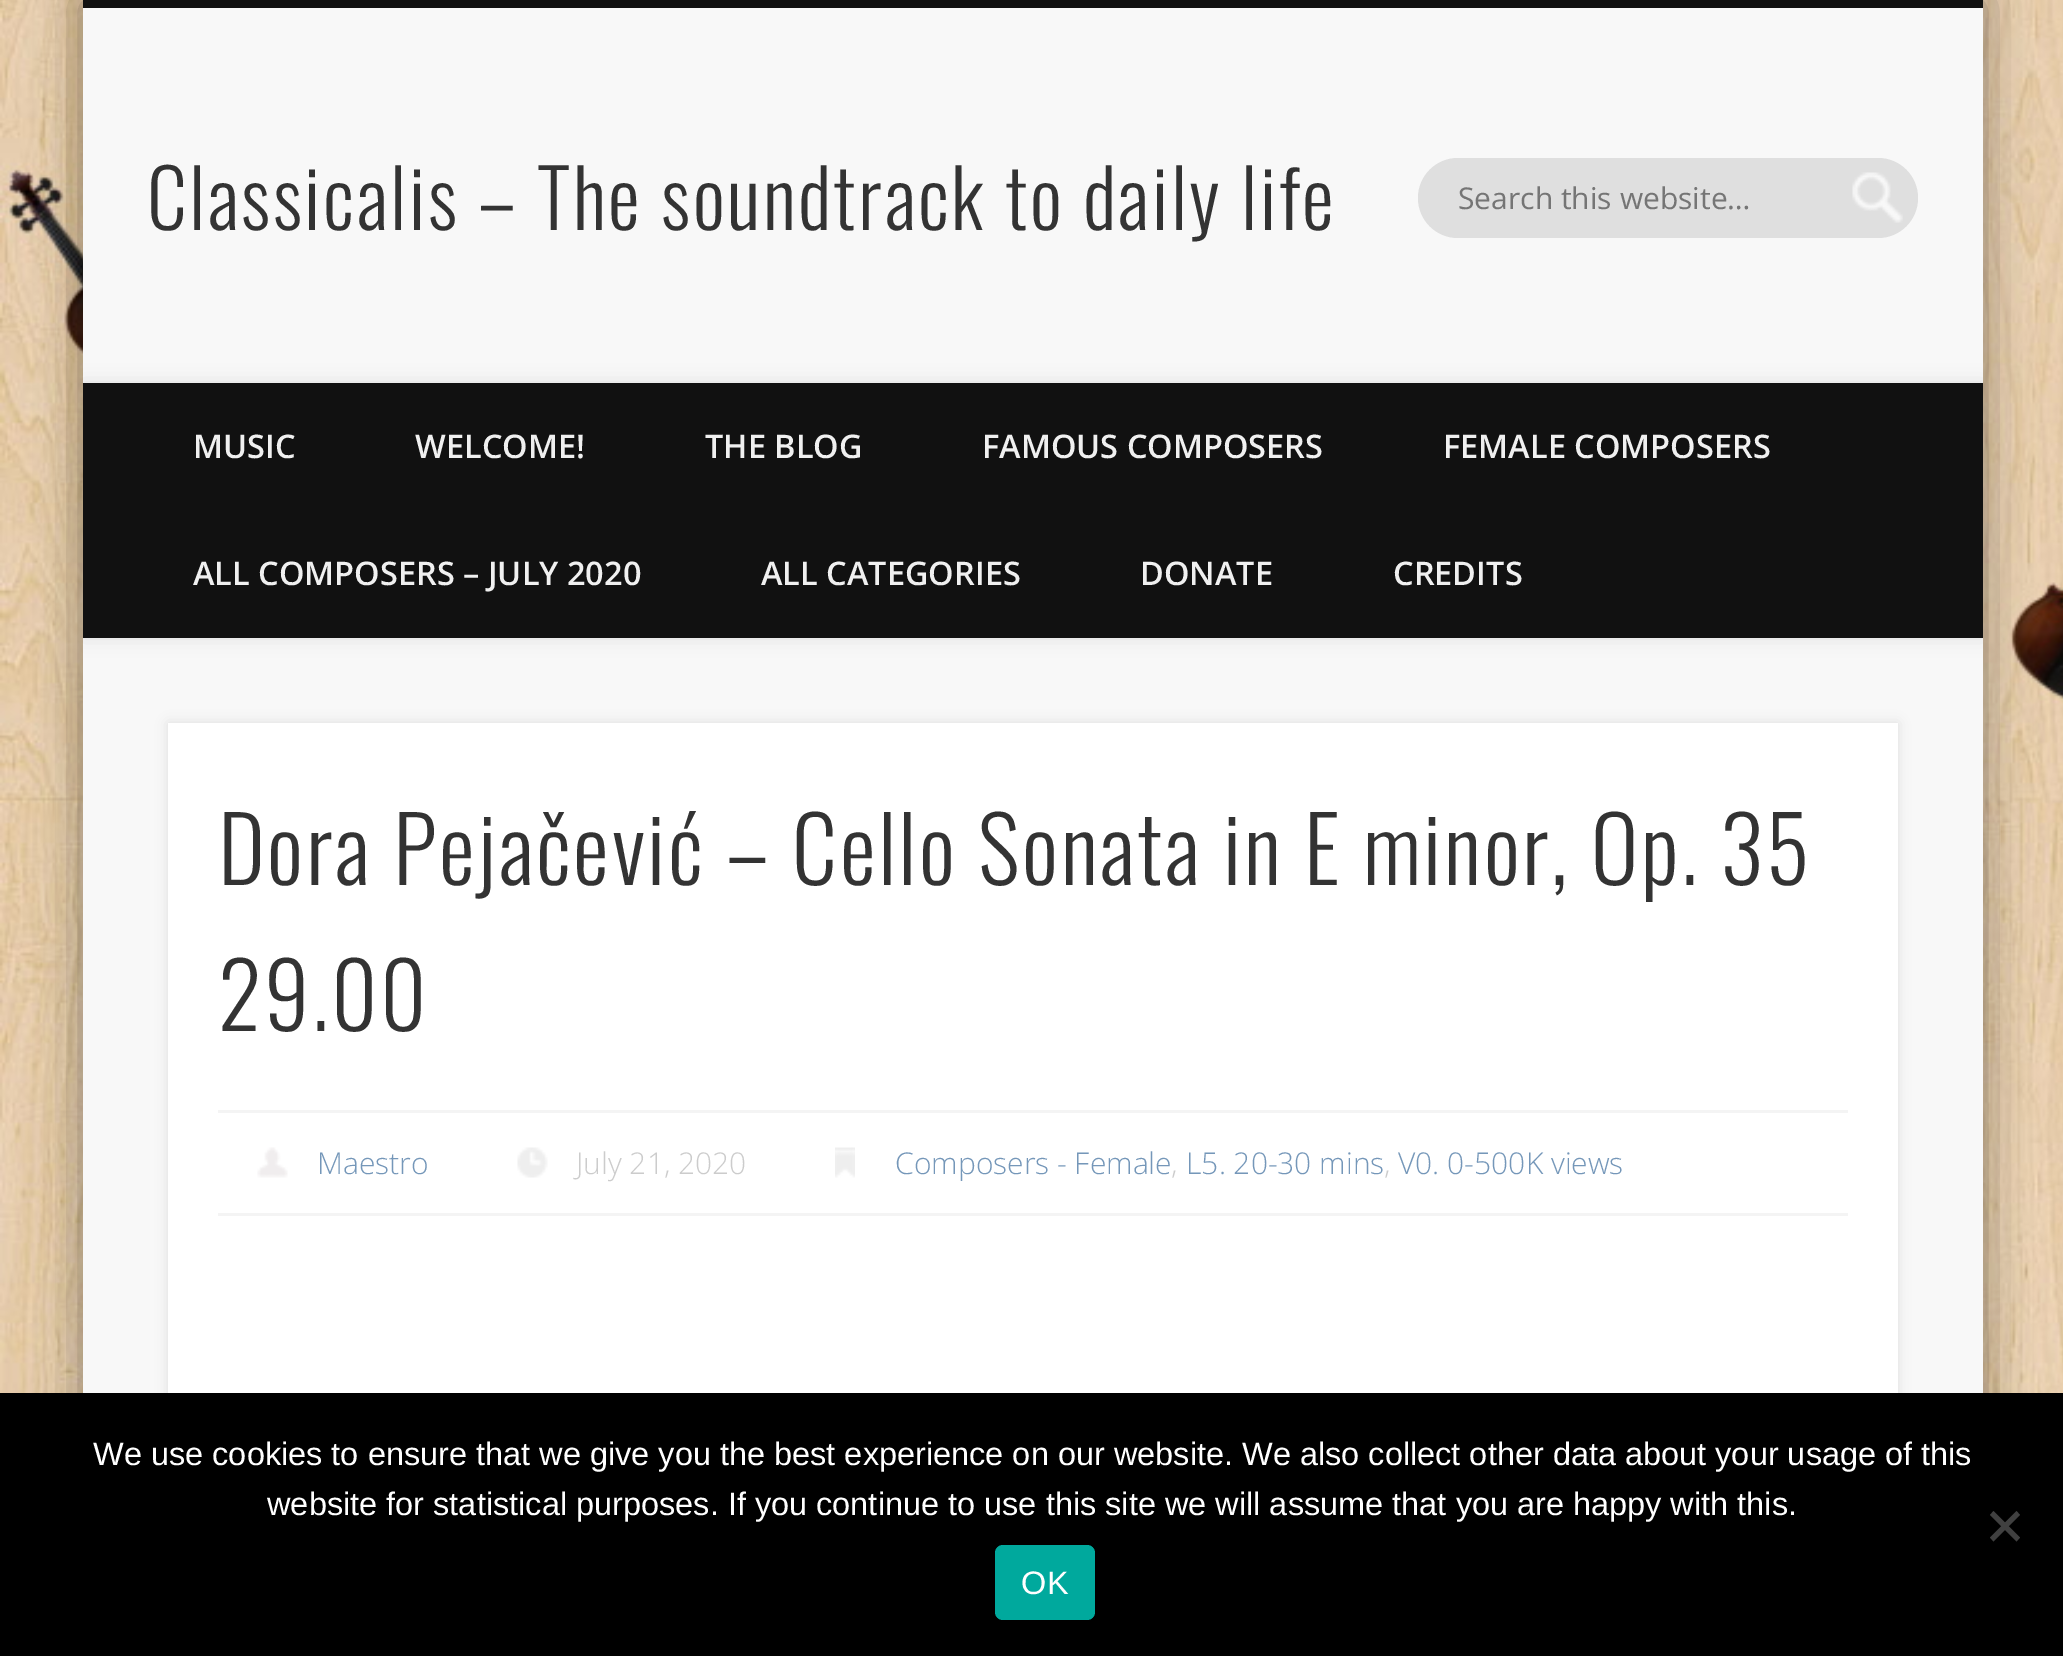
%!PS
<< /PageSize [2063 1656] /PageUsesTransparency true >> setpagedevice
/m/moveto load def
/l/rlineto load def
/z/closepath load def
/f/fill load def
/q/gsave load def
/Q_/grestore load def
/C { dup -16 bitshift 255 div exch dup -8 bitshift 255 and 255 div exch 255 and 255 div setrgbcolor } def
/F { [ exch dup neg 0 0 3 -1 roll 0 0 ] selectfont } def
/T { moveto show } def
/R { rectfill } def
/A { dup .setfillconstantalpha .setstrokeconstantalpha } def
/Q { 5 dict begin { /r /h /w /y /x } { exch def } forall
  x r add y moveto x w add y 2 copy h add r arct x w add y h add x 1 index r arct
  x y h add x y r arct x y 2 copy exch w add exch r arct closepath end } def
/S { 12 dict begin { /a /b /q /h /w /y /x } { exch def } forall gsave /was 0 def
  9 -2 -9 { dup b mul 4 div /e exch def 1 sub .425 mul 2.718 exch exp 1 add a .99 .min exch div /now exch def
    1 1 now sub 1 was sub div sub A /was now def
    w h .min e 2 mul add 0 gt { x e sub y e sub w e 2 mul add h e 2 mul add
      q e add b .6 mul add w h .min 2 div e add .min 0 .max Q fill } if } for grestore end } def
/I { 5 dict begin { /h /w /y /x /name } { exch def } forall
  gsave x y translate w h scale
  w h 8 [w 0 0 h 0 0] name (r) file false 3 colorimage grestore end } def
0 .pushpdf14devicefilter
0 1656 translate 1 -1 scale
4 setmiterlimit
16#FFFFFF C
0 0 2063 1656 R
(1.rgb) 0 0 2063 1393 I
16#000000 C
83 0 1900 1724 0 22.5 .4 S
16#F8F8F8 C
83 8 1900 1385 R
16#111111 C
83 0 1900 8 R
/Oswald-Light 80 F
16#333333 C
147 230 m 2.5 0 (Classicalis – The soundtrack to daily life) ashow
16#DFDFDF C
1418 158 500 80 40 Q f
(2.rgb) 1852 172 51 51 I
/OpenSans-Regular 30 F
16#757575 C
(Search this website…) 1458 209 T
q
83 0 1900 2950 rectclip
16#000000 C
83 383 1900 255 0 9 .1 S
Q_
16#111111 C
83 383 1900 255 R
/OpenSans-SemiBold 32.5 F
16#F0F0F0 C
(MUSIC) 193 458 T
(WELCOME!) 415 458 T
(THE BLOG) 705 458 T
(FAMOUS COMPOSERS) 982 458 T
(FEMALE COMPOSERS) 1443 458 T
(ALL COMPOSERS – JULY 2020) 193 585 T
(ALL CATEGORIES) 761 585 T
(DONATE) 1140 585 T
(CREDITS) 1393 585 T
16#000000 C
168 723 1730 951 0 6 .1 S
16#FFFFFF C
168 723 1730 670 R
/Oswald-Light 90 F
16#333333 C
218 885 m 2.5 0 (Dora Pejačević – Cello Sonata in E minor, Op. 35) ashow
218 1031 m 2.5 0 (29.00) ashow
16#F4F4F4 C
218 1110 1630 3 R
218 1213 1630 3 R
(3.rgb) 257 1147 31 31 I
/OpenSans-Light 30 F
16#7597B9 C
(Maestro) 317 1174 T
(4.rgb) 517 1147 31 31 I
16#CCCCCC C
(July 21, 2020) 576 1174 T
(5.rgb) 835 1147 20 31 I
16#7597B9 C
(Composers - Female) 895 1174 T
16#CCCCCC C
(,) 1171 1174 T
16#7597B9 C
(L5. 20-30 mins) 1186 1174 T
16#CCCCCC C
(,) 1384 1174 T
16#7597B9 C
(V0. 0-500K views) 1398 1174 T
16#000000 C
0 1393 2063 263 R
/LiberationSans-Regular 32.5 F
16#FFFFFF C
(We use cookies to ensure that we give you the best experience on our website. We also collect other data about your usage of this) 93 1465 T
(website for statistical purposes. If you continue to use this site we will assume that you are happy with this.) 267 1515 T
16#404040 C
2016.5 1511 m 3.5 4 l -26.5 26.5 l -3.5 -4 l z f
1990 1515 m 3.5 -4 l 26.5 26.5 l -3.5 4 l z f
16#00A99D C
995 1545 100 75 8 Q f
16#FFFFFF C
1021 1594 m 1 0 (OK) ashow
.poppdf14devicefilter showpage
